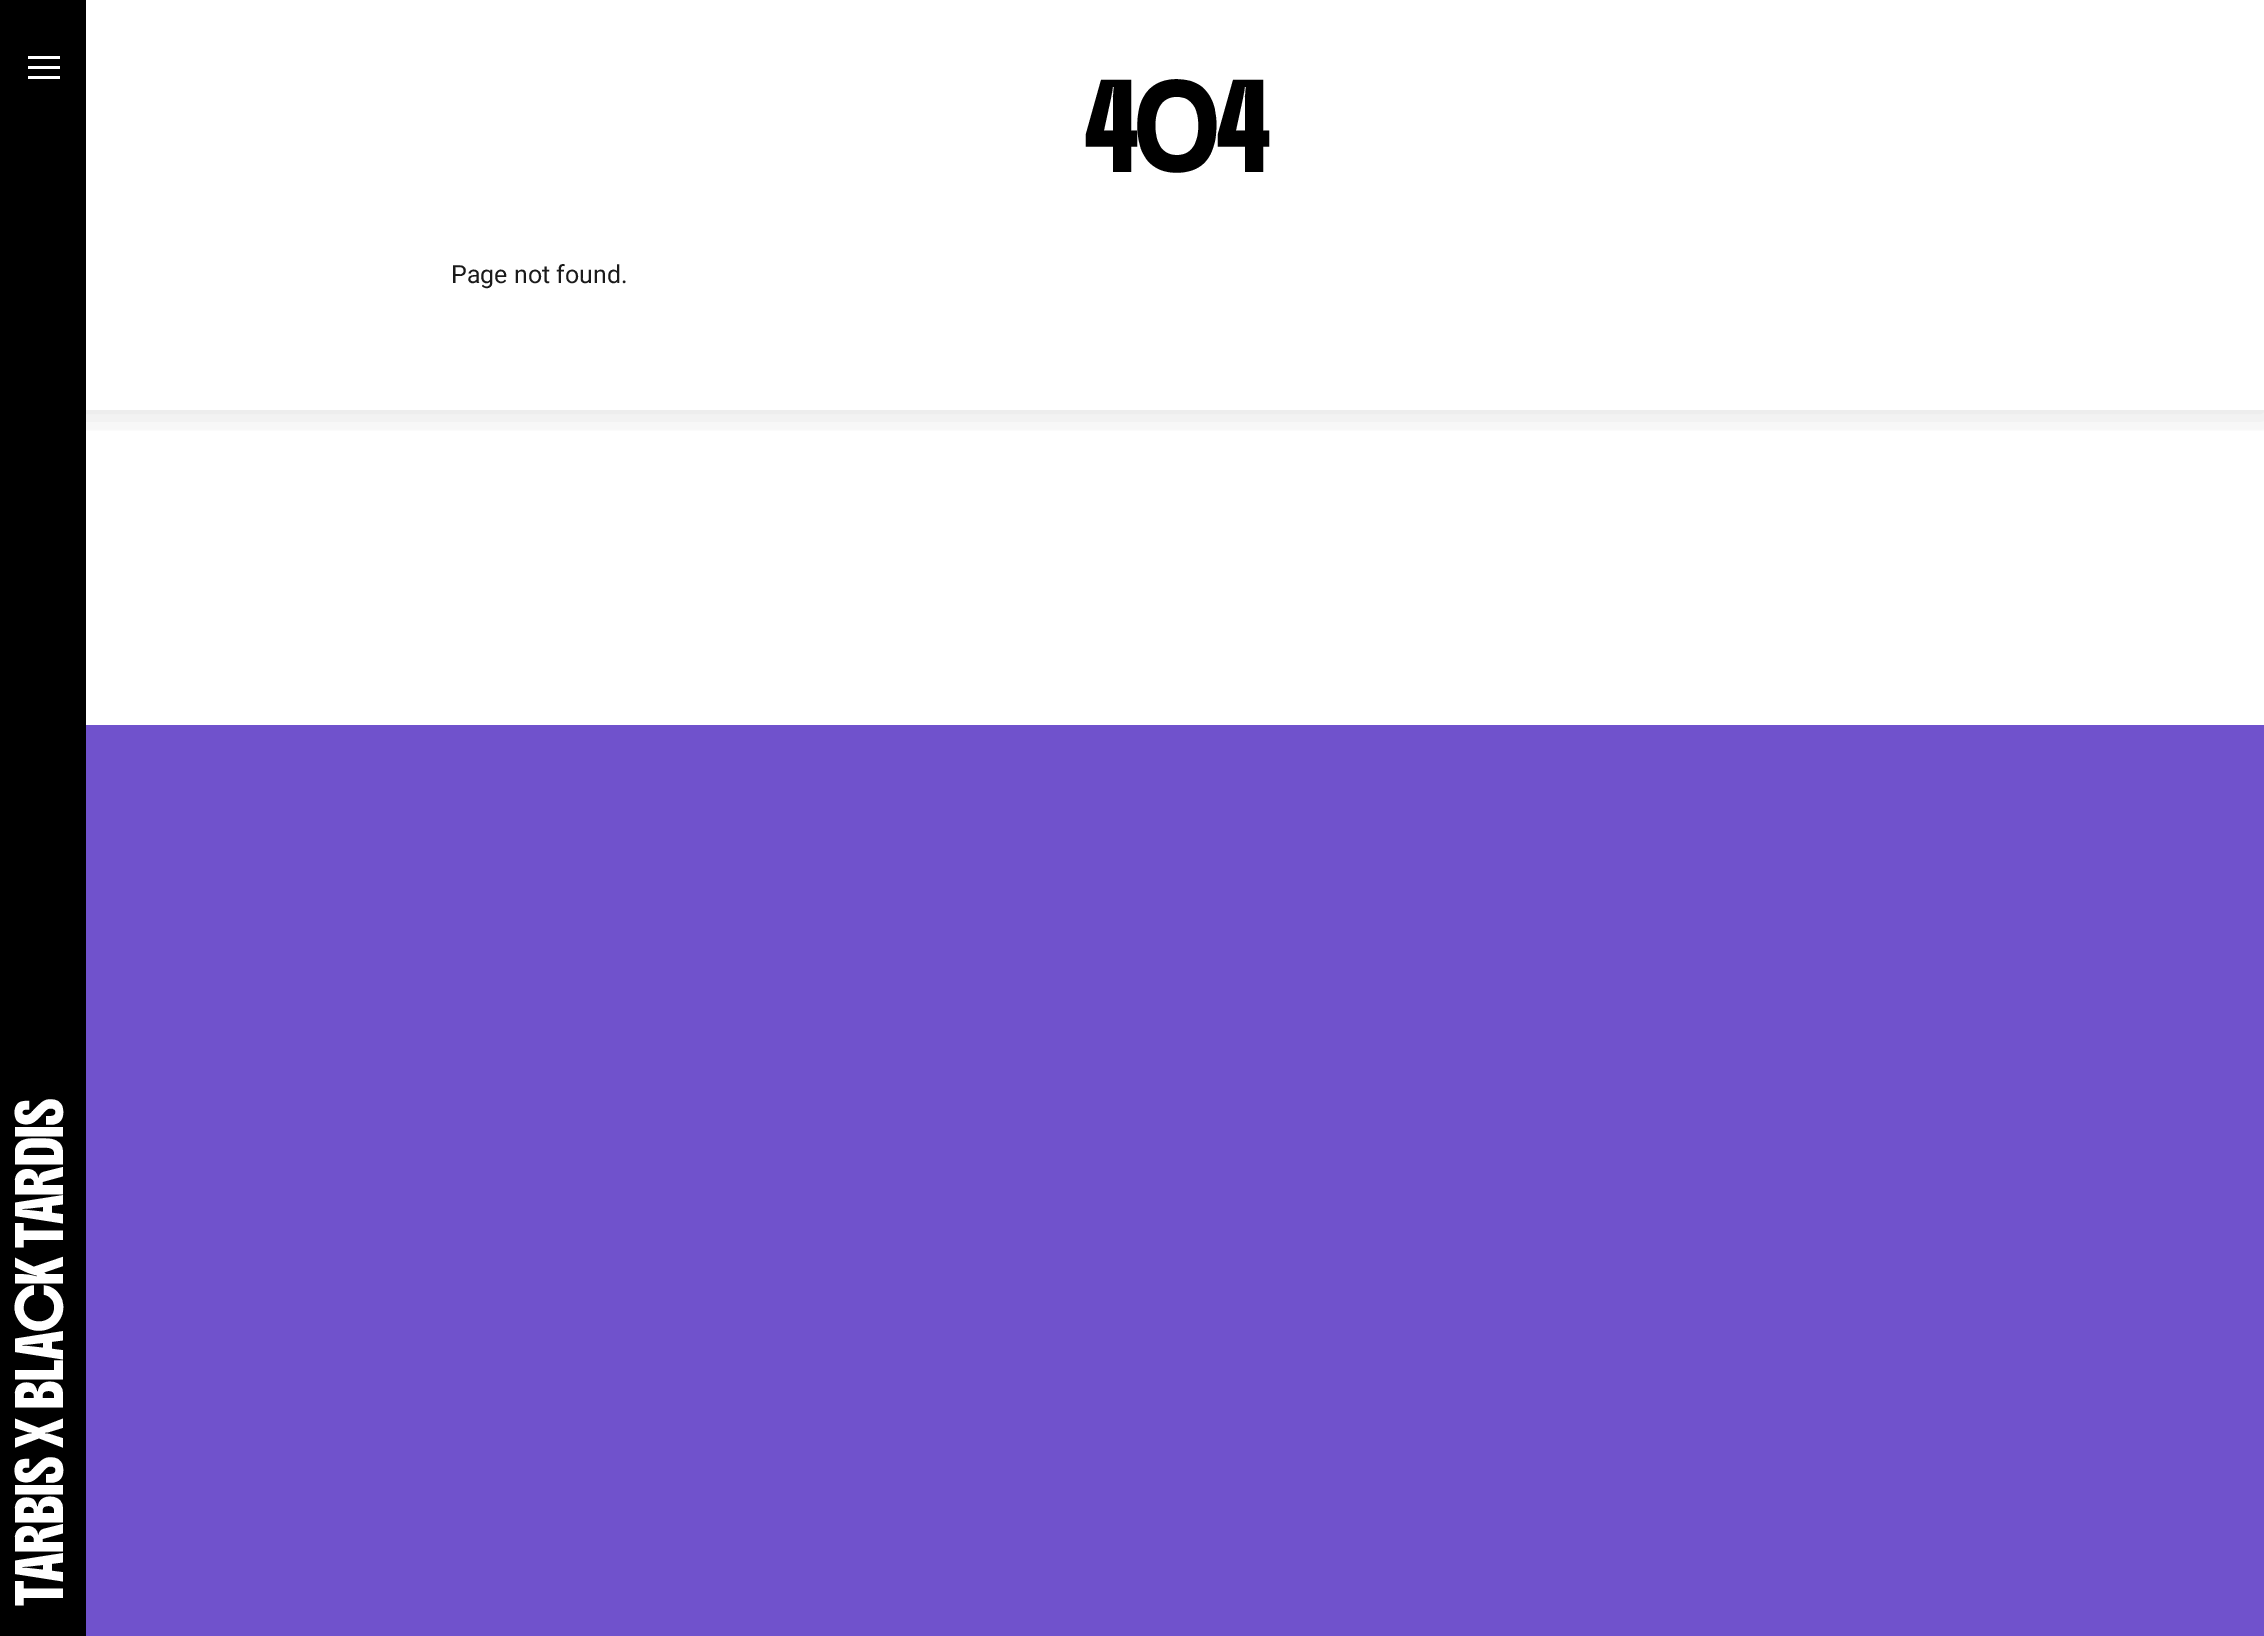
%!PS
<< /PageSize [2264 1636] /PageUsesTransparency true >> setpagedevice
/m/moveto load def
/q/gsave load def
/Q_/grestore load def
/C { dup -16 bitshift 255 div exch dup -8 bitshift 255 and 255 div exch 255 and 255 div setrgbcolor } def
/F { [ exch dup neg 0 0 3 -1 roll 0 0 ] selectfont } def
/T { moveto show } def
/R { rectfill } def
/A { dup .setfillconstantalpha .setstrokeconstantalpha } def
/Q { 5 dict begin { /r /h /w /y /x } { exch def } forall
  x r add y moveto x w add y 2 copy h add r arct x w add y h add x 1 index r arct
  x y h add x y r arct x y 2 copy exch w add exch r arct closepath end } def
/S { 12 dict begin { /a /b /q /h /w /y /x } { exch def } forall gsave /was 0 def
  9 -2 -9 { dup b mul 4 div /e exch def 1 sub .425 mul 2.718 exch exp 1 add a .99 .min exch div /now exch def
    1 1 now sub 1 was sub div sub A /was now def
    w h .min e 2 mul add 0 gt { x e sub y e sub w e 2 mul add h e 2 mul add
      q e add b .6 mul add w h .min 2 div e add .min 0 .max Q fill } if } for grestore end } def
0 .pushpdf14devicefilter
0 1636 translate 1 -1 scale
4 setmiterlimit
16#7052CC C
0 0 2264 1636 R
16#FFFFFF C
86 0 2178 725 R
q
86 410 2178 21 rectclip
16#000000 C
-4 0 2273 418 0 15.5 .1 S
Q_
/Boldonse-Bold 77.5 F
16#000000 C
1085 172 m -2 0 (404) ashow
/Roboto-Regular 25 F
16#1A1A1A C
(Page not found.) 451 283 T
16#000000 C
0 0 86 1636 R
16#FFFFFF C
28 76 32 3 R
28 56 32 3 R
28 66 32 3 R
/Boldonse-Bold 40.4 F
q 63 1606 translate -90 rotate 0 0 m -1.6 0 (TARBIS X BLACK TARDIS) ashow Q_
.poppdf14devicefilter showpage
